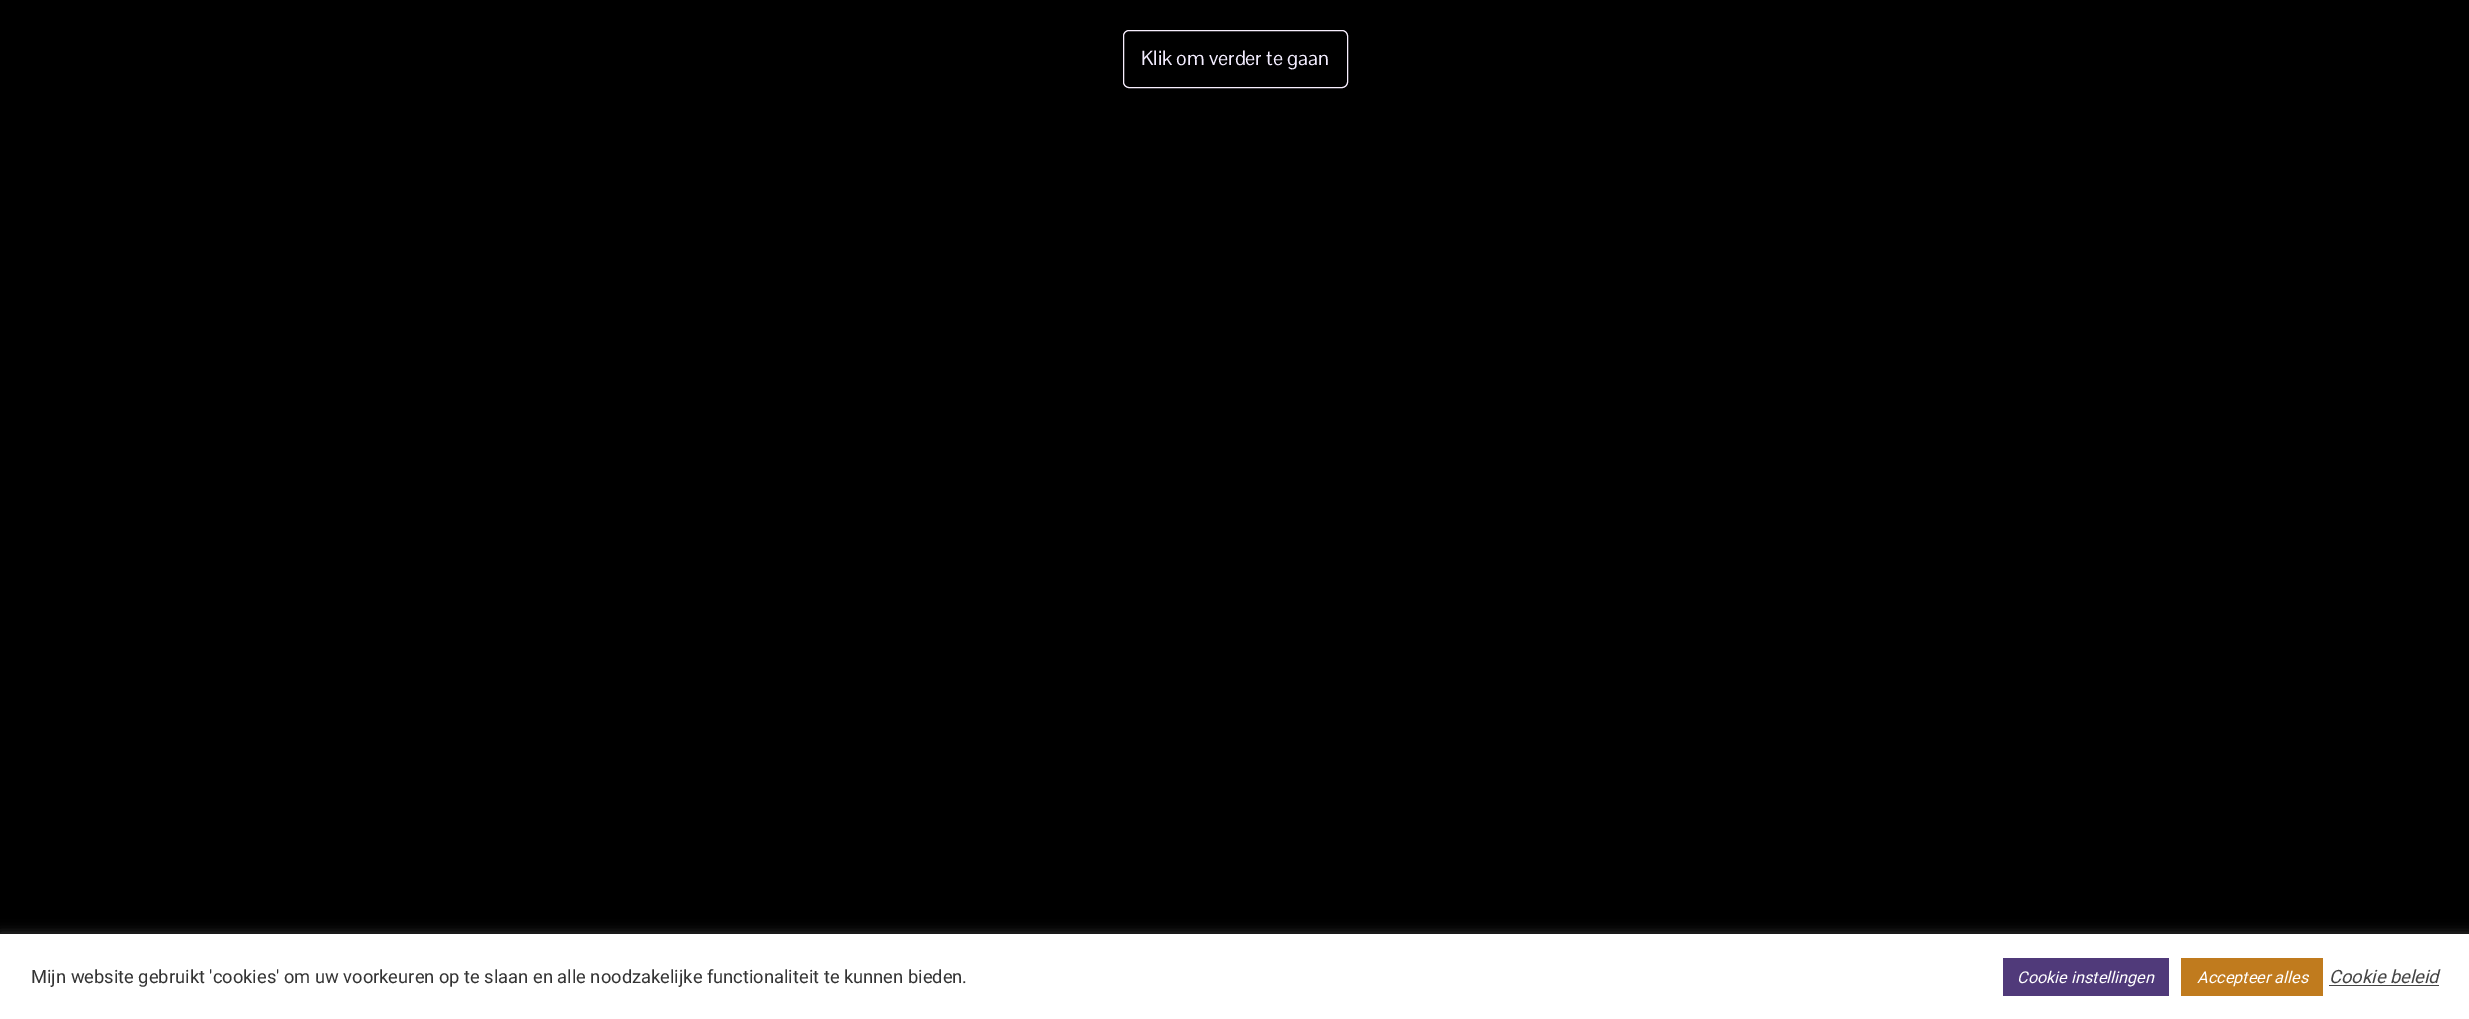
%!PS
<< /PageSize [2469 1019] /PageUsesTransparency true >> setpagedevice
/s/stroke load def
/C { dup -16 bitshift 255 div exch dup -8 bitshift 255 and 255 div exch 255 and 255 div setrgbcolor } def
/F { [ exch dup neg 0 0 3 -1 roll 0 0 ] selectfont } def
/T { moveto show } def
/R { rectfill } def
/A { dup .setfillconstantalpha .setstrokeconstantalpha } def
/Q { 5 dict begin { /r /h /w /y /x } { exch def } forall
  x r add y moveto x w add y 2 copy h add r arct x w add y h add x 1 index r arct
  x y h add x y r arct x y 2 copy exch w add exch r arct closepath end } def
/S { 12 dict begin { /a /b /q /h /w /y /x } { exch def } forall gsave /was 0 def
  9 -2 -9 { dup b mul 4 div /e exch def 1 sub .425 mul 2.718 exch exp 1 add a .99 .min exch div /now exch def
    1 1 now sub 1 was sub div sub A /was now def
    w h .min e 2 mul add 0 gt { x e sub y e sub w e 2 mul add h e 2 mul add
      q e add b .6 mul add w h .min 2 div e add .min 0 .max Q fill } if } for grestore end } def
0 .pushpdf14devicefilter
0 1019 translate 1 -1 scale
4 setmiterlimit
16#000000 C
0 0 2469 1019 R
16#F9EFFF C
1123.5 30.5 224 57 5.5 Q s
/PontanoSans-Regular 20 F
16#F3EDFF C
(Klik om verder te gaan) 1141 65 T
16#ACABAB C
0 933 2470 86 0 6 .3 S
16#FFFFFF C
0 934 2469 85 R
/Roboto-Regular 18.33 F
16#333333 C
(Mijn website gebruikt 'cookies' om uw voorkeuren op te slaan en alle noodzakelijke functionaliteit te kunnen bieden.) 31 983 T
16#503A7A C
2003 958 166 38 R
/Roboto-Italic 16.25 F
16#FFFFFF C
(Cookie instellingen) 2017 983 T
16#C07B1E C
2181 958 142 38 R
16#FFFFFF C
(Accepteer alles) 2197 983 T
/Roboto-Italic 18.33 F
16#444444 C
(Cookie beleid) 2329 983 T
2329 985 110 1 R
.poppdf14devicefilter showpage
